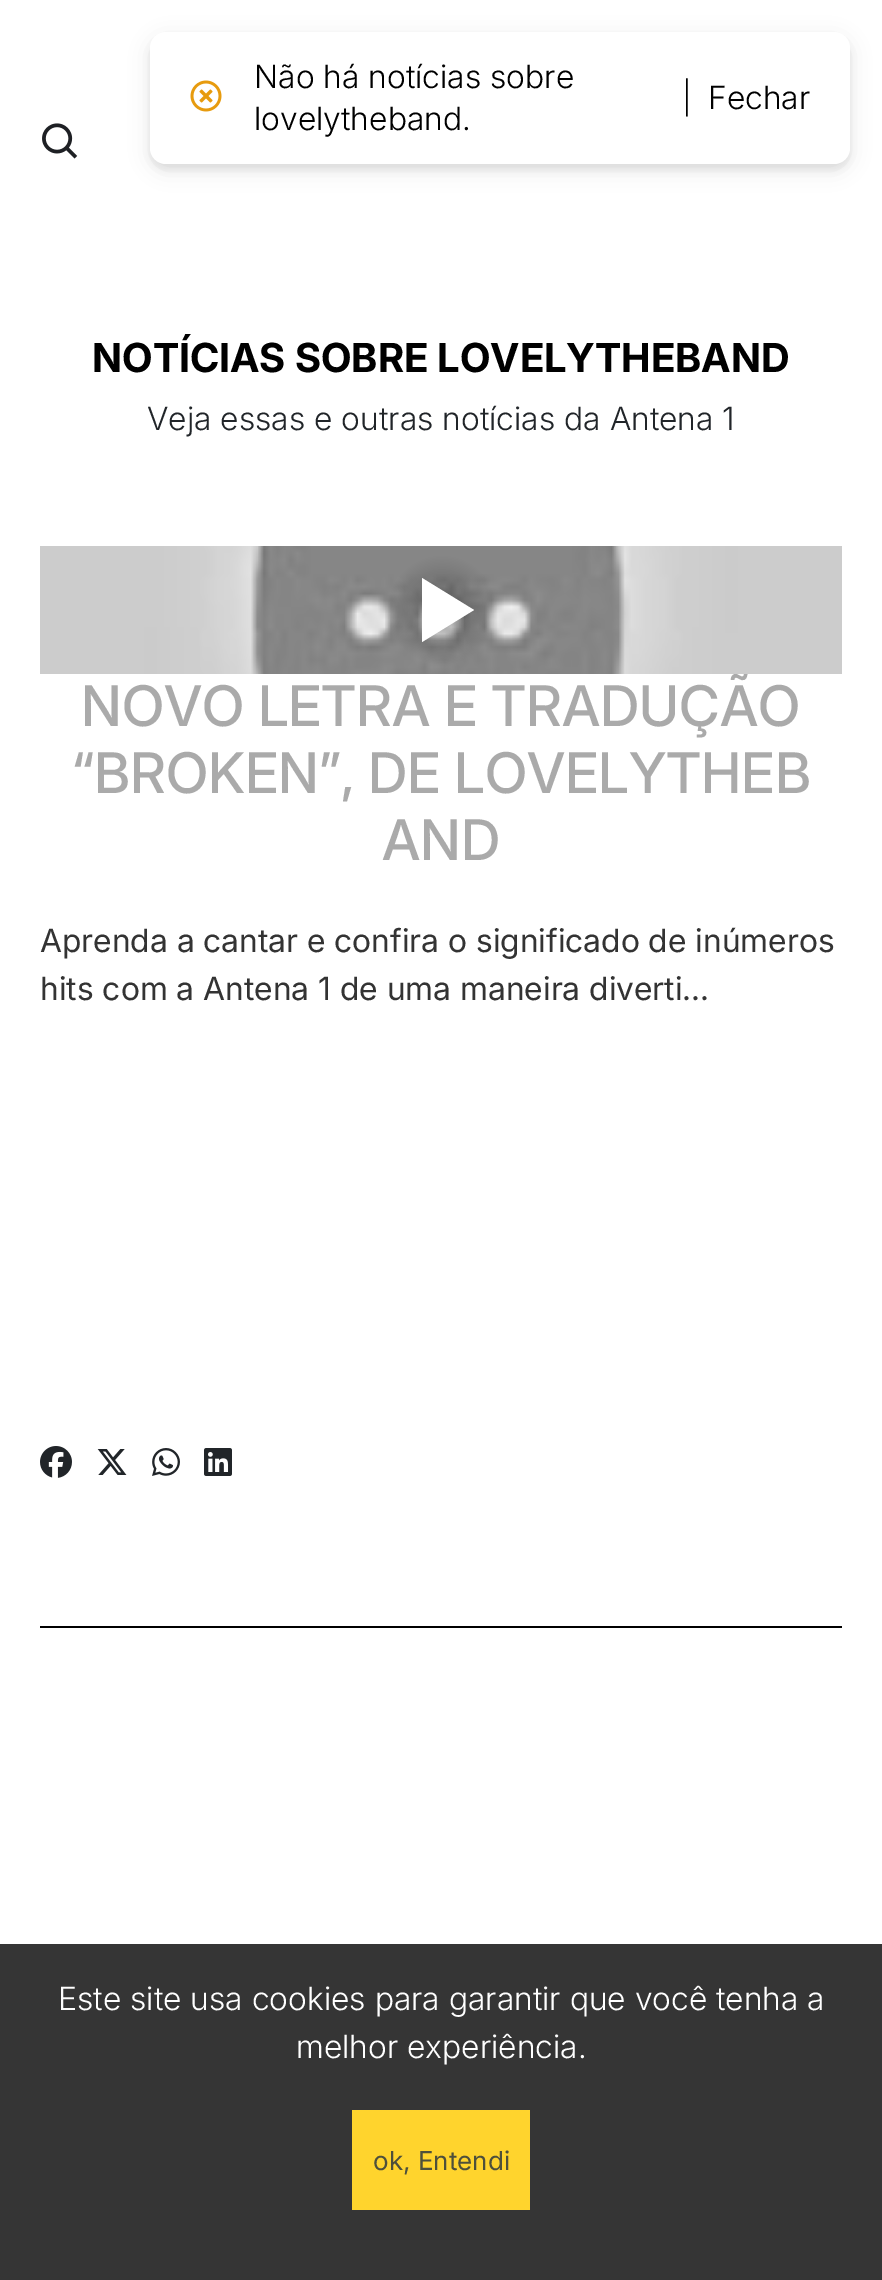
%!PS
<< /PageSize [882 2280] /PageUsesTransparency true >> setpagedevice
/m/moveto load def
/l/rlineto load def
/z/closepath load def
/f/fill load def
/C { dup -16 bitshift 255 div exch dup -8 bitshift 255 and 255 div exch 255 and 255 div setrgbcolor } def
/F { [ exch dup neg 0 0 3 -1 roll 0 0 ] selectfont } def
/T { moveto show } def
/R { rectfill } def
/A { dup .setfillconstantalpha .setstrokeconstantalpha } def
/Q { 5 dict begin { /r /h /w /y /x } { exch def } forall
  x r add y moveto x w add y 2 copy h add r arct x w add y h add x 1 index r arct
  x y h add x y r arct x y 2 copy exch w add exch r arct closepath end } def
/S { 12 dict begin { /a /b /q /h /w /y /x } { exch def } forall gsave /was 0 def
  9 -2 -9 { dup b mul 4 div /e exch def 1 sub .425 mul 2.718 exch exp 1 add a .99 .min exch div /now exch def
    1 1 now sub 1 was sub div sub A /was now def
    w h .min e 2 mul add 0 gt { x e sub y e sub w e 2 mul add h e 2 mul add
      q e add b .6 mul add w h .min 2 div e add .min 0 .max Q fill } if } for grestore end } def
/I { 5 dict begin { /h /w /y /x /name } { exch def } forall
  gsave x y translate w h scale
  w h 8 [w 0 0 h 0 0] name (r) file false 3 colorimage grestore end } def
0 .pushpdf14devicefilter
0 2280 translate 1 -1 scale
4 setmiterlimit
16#FFFFFF C
0 0 882 2280 R
16#000000 C
150 38 700 132 16 3 .05 S
150 38 700 132 16 10 .1 S
16#FFFFFF C
150 32 700 132 16 Q f
(1.rgb) 190 80 32 32 I
/Inter-Light 32 F
16#000000 C
(Não há notícias sobre) 254 88 T
(lovelytheband.) 254 130 T
(|) 682 109 T
(Fechar) 708 109 T
(2.rgb) 42 123 36 36 I
/Inter-Bold 40 F
(NOTÍCIAS SOBRE LOVELYTHEBAND) 92 372 T
/Inter-Light 32 F
16#212529 C
(Veja essas e outras notícias da Antena 1) 147 430 T
(3.rgb) 40 546 802 128 I
16#FFFFFF C
422 642 m 0 -64 l 52 32 l z f
/Inter-Medium 56 F
16#AAAAAA C
(NOVO LETRA E TRADUÇÃO) 81 726 T
(“BROKEN”, DE LOVELYTHEB) 72 793 T
(AND) 382 860 T
/Inter-Regular 32 F
16#333333 C
(Aprenda a cantar e confira o significado de inúmeros) 40 952 T
(hits com a Antena 1 de uma maneira diverti...) 40 1000 T
(4.rgb) 40 1446 32 32 I
(5.rgb) 97 1449 30 26 I
(6.rgb) 152 1448 28 28 I
(7.rgb) 204 1448 28 28 I
16#000000 C
40 1626 802 2 R
16#353535 C
0 1944 882 336 R
/Inter-Light 32 F
16#FFFFFF C
(Este site usa cookies para garantir que você tenha a) 58 2010 T
(melhor experiência.) 296 2058 T
16#FFD42D C
352 2110 178 100 R
/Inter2-Regular 26 F
16#4E503B C
(ok, Entendi) 373 2170 T
.poppdf14devicefilter showpage
